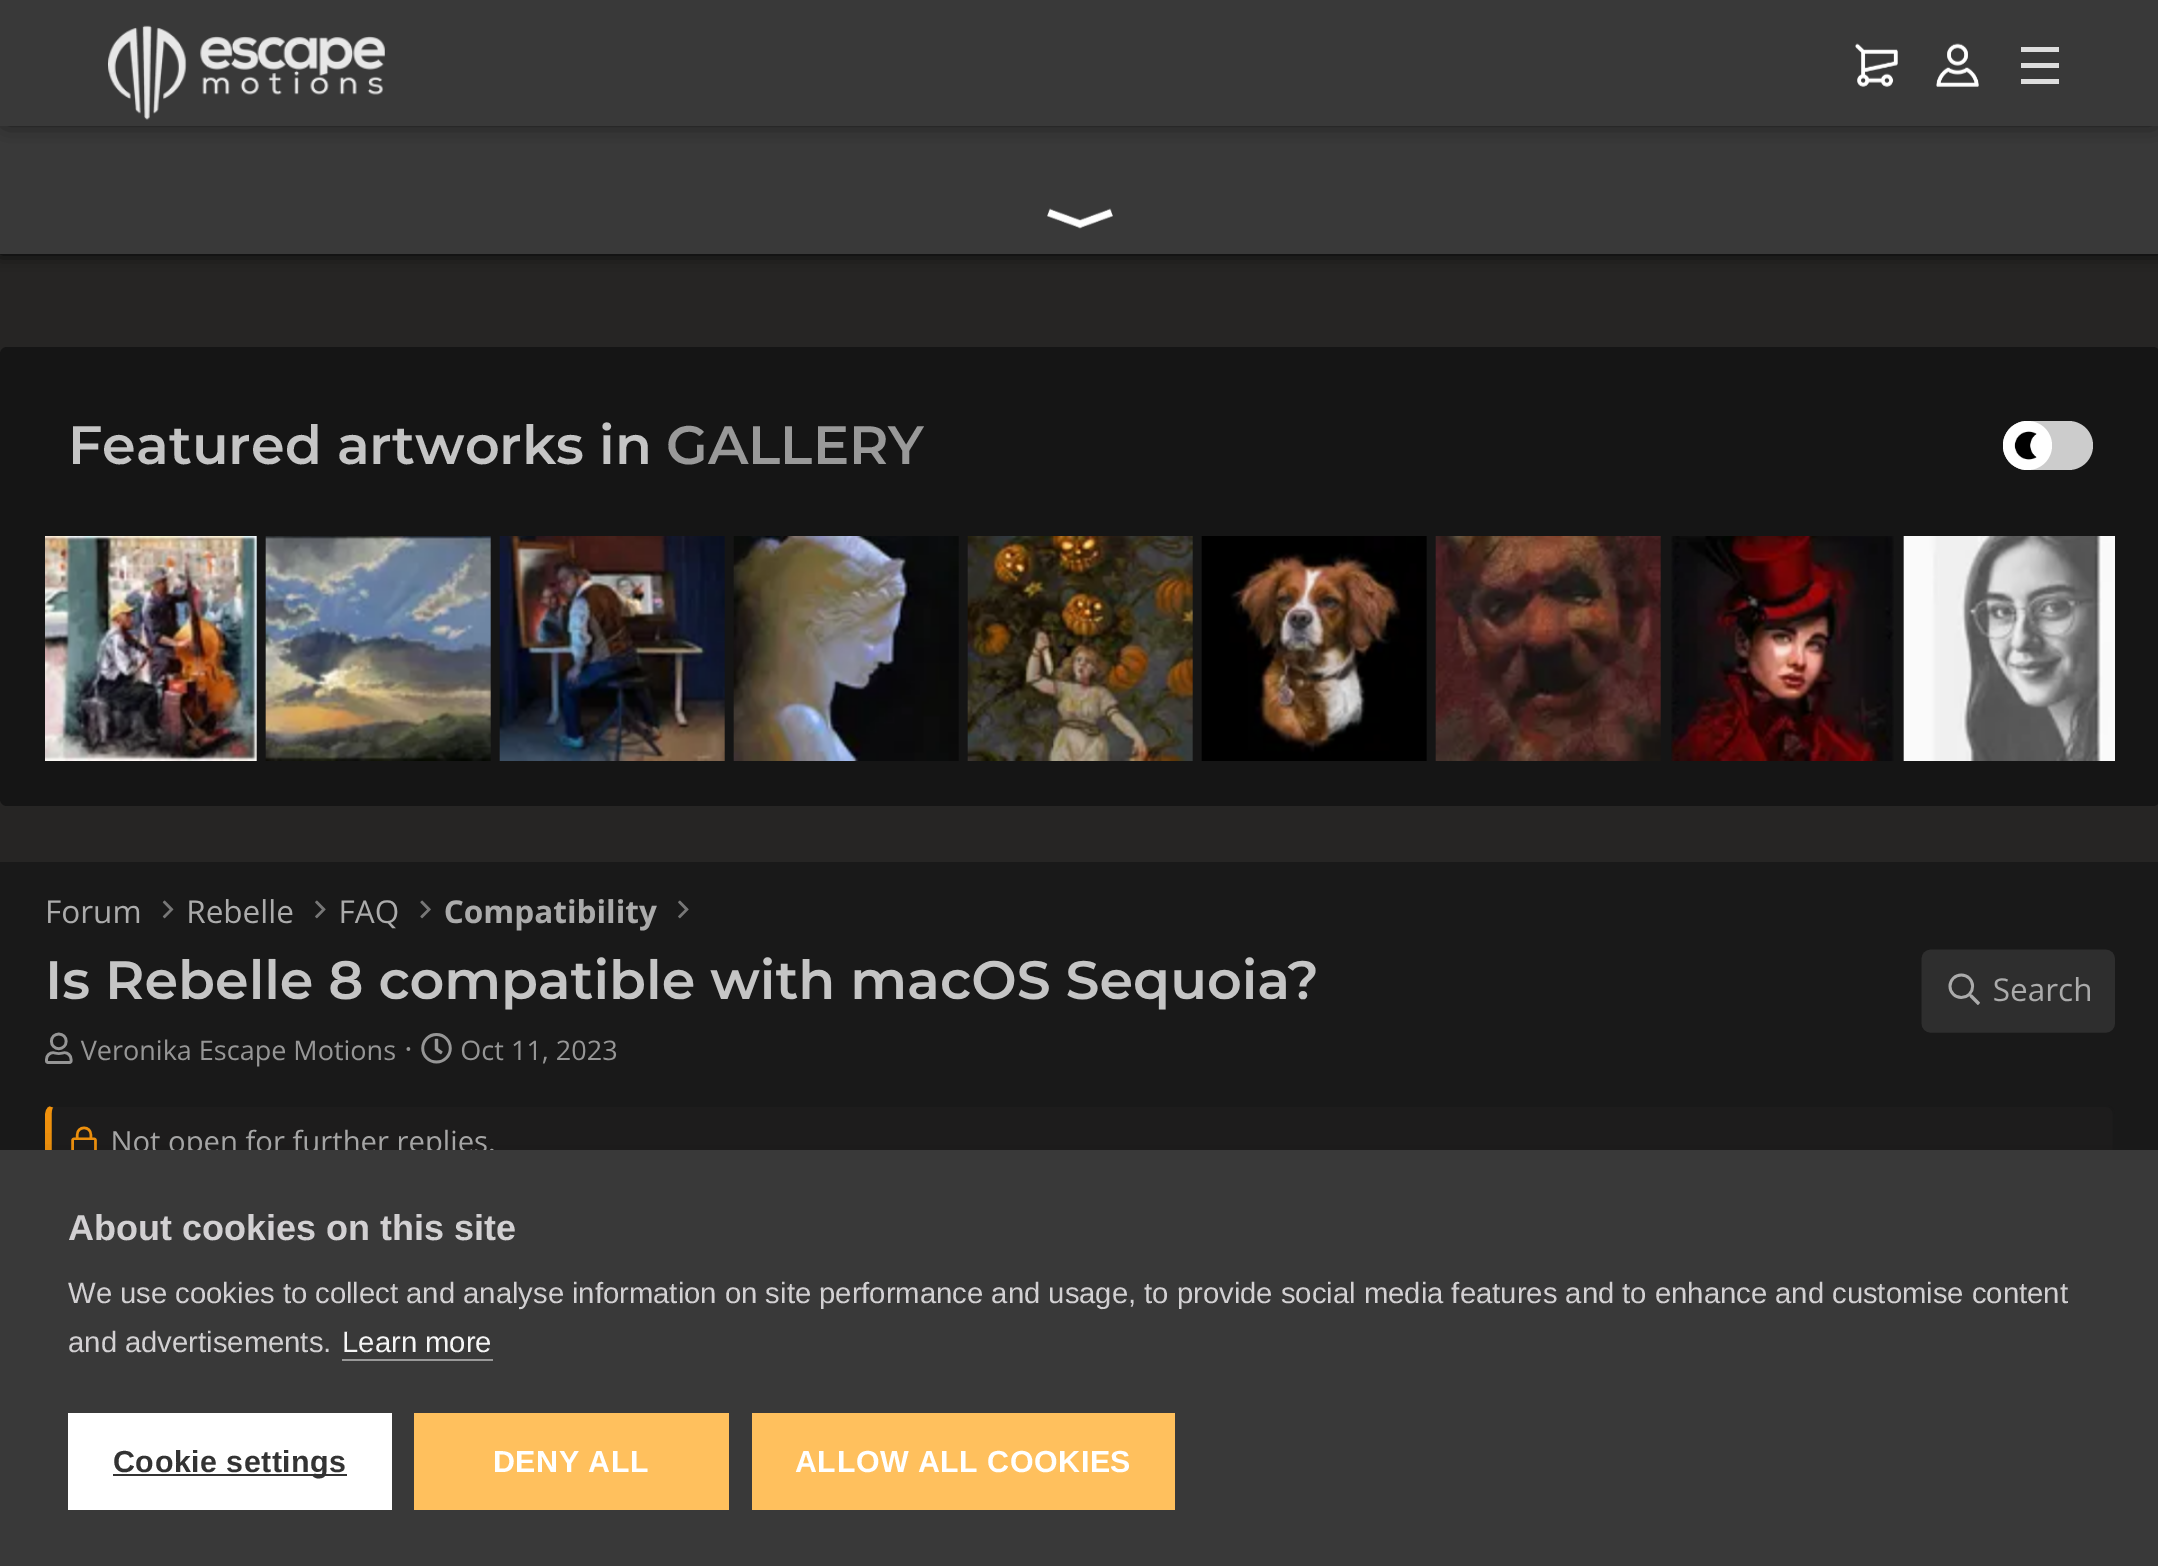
%!PS
<< /PageSize [2158 1566] /PageUsesTransparency true >> setpagedevice
/m/moveto load def
/f/fill load def
/C { dup -16 bitshift 255 div exch dup -8 bitshift 255 and 255 div exch 255 and 255 div setrgbcolor } def
/F { [ exch dup neg 0 0 3 -1 roll 0 0 ] selectfont } def
/T { moveto show } def
/R { rectfill } def
/A { dup .setfillconstantalpha .setstrokeconstantalpha } def
/O { newpath 0 360 arc closepath } def
/Q { 5 dict begin { /r /h /w /y /x } { exch def } forall
  x r add y moveto x w add y 2 copy h add r arct x w add y h add x 1 index r arct
  x y h add x y r arct x y 2 copy exch w add exch r arct closepath end } def
/S { 12 dict begin { /a /b /q /h /w /y /x } { exch def } forall gsave /was 0 def
  9 -2 -9 { dup b mul 4 div /e exch def 1 sub .425 mul 2.718 exch exp 1 add a .99 .min exch div /now exch def
    1 1 now sub 1 was sub div sub A /was now def
    w h .min e 2 mul add 0 gt { x e sub y e sub w e 2 mul add h e 2 mul add
      q e add b .6 mul add w h .min 2 div e add .min 0 .max Q fill } if } for grestore end } def
/I { 5 dict begin { /h /w /y /x /name } { exch def } forall
  gsave x y translate w h scale
  w h 8 [w 0 0 h 0 0] name (r) file false 3 colorimage grestore end } def
0 .pushpdf14devicefilter
0 1566 translate 1 -1 scale
4 setmiterlimit
16#262524 C
0 0 2158 1566 R
16#000000 C
0 124 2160 130 0 8 1 S
16#393939 C
0 126 2158 128 R
16#000000 C
7 7 2146 112 0 11 1 S
16#393939 C
0 0 2158 126 R
(1.rgb) 108 25 277 95 I
(2.rgb) 1855 43 43 44 I
(3.rgb) 1936 43 43 44 I
16#DDDDDD C
2021 63 38 5 R
2021 47 38 5 R
2021 79 38 5 R
(4.rgb) 1047 208 66 21 I
16#151515 C
0 347 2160 459 7 Q f
/Montserrat-SemiBold 54 F
16#C5C5C5 C
(Featured artworks in) 68 464 T
16#999999 C
(GALLERY) 666 464 T
16#CCCCCC C
2003 421 90 49 24.5 Q f
16#FFFFFF C
2027.5 445.5 24.5 O f
(5.rgb) 2014 431 23 29 I
(6.rgb) 45 536 212 225 I
(7.rgb) 265 536 226 225 I
(8.rgb) 499 536 226 225 I
(9.rgb) 733 536 226 225 I
(10.rgb) 967 536 226 225 I
(11.rgb) 1201 536 226 225 I
(12.rgb) 1435 536 226 225 I
(13.rgb) 1671 536 223 225 I
(14.rgb) 1903 536 212 225 I
(15.rgb) 0 862 2158 288 I
16#000000 C
0 1150 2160 416 0 22.5 .1 S
16#393939 C
0 1150 2158 416 R
/LiberationSans-Bold 36 F
16#D2D0D2 C
(About cookies on this site) 68 1240 T
/LiberationSans-Regular 29.25 F
(We use cookies to collect and analyse information on site performance and usage, to provide social media features and to enhance and customise content) 68 1303 T
(and advertisements.) 68 1352 T
16#F5F5F5 C
(Learn more) 342 1352 T
16#999999 C
342 1359 151 2 R
16#FFFFFF C
68 1413 324 97 R
16#333333 C
113 1474 234 2 R
/LiberationSans-Bold 30.4 F
113 1472 m .5 0 (Cookie settings) ashow
16#FFC05D C
414 1413 315 97 R
16#FFFFFF C
493 1472 m .5 0 (DENY ALL) ashow
16#FFC05D C
752 1413 423 97 R
16#FFFFFF C
795 1472 m .5 0 (ALLOW ALL COOKIES) ashow
.poppdf14devicefilter showpage
